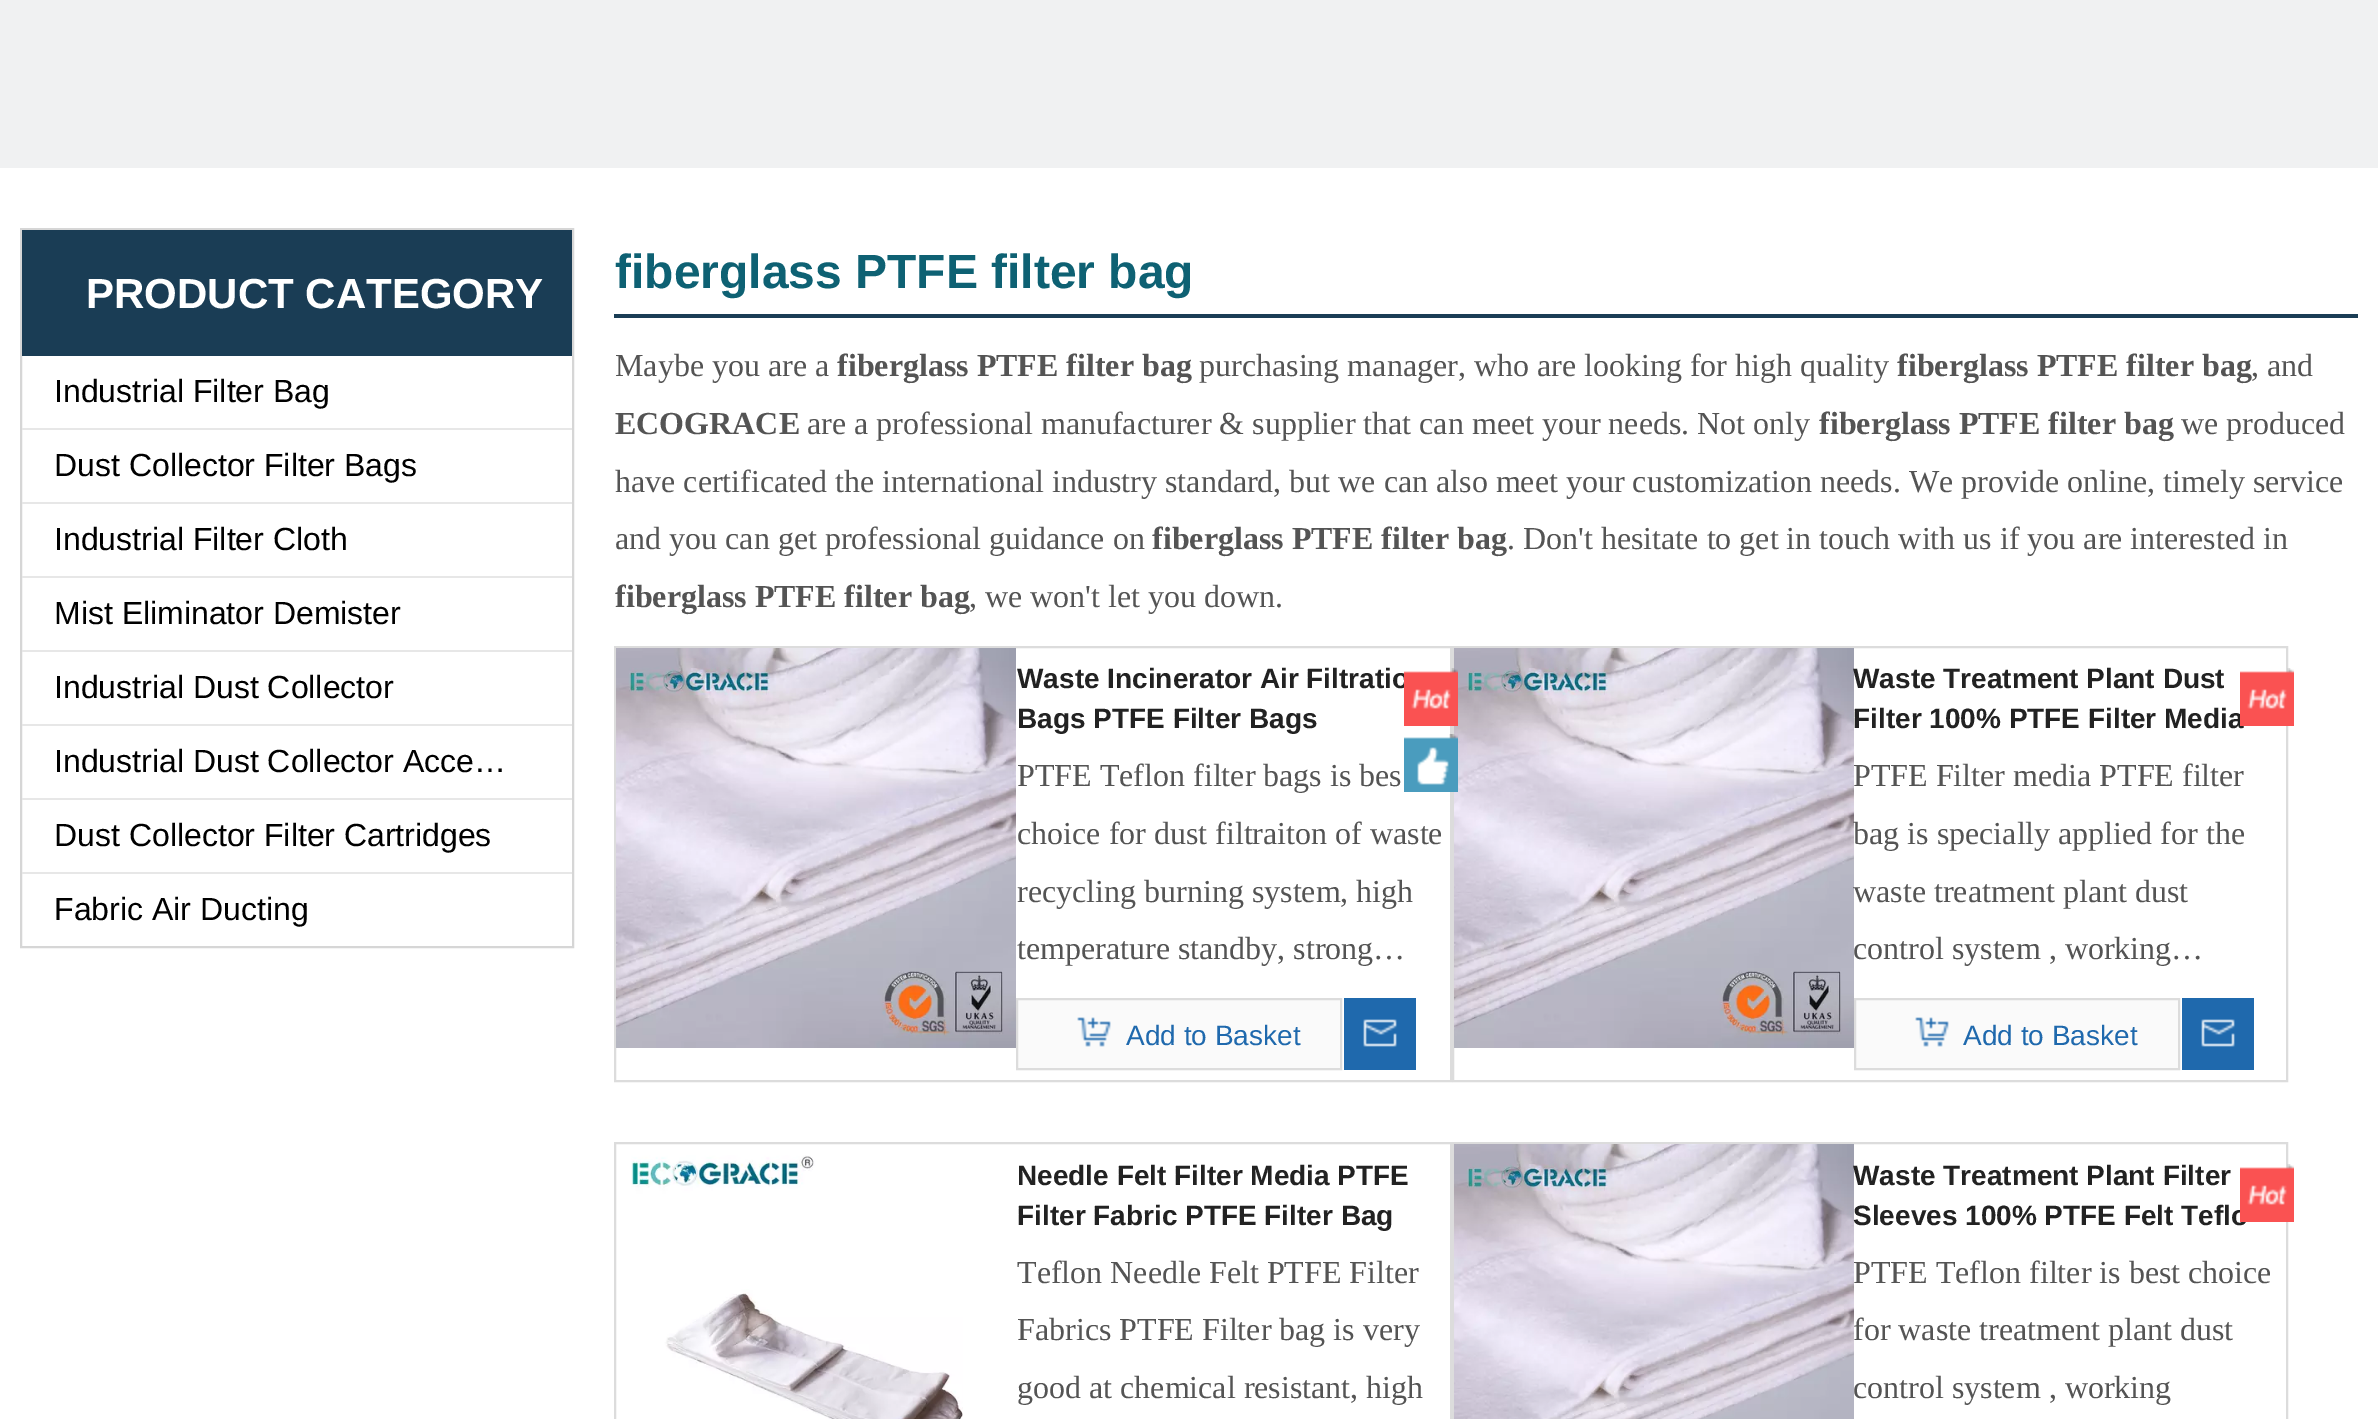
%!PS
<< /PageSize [2378 1419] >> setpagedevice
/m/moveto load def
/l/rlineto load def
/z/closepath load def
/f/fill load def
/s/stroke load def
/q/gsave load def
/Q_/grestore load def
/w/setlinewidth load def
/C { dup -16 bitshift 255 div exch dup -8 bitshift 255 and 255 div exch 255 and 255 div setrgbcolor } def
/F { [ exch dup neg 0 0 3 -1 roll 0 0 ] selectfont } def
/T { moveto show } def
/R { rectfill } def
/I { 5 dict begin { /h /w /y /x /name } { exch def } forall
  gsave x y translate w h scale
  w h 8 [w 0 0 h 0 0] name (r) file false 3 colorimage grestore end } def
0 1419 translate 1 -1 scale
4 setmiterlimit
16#FFFFFF C
0 0 2378 1419 R
16#F0F1F2 C
0 0 2378 168 R
16#D6D6D6 C
2 w
21 229 552 718 rectstroke
16#1A3D55 C
22 230 550 126 R
/LiberationSans-Bold 42 F
16#FFFFFF C
(PRODUCT CATEGORY) 86 308 T
/LiberationSans-Regular 32 F
16#000000 C
(Industrial Filter Bag) 54 402 T
16#E7E7E7 C
22 428 550 2 R
16#000000 C
(Dust Collector Filter Bags) 54 476 T
16#E7E7E7 C
22 502 550 2 R
16#000000 C
(Industrial Filter Cloth) 54 550 T
16#E7E7E7 C
22 576 550 2 R
16#000000 C
(Mist Eliminator Demister) 54 624 T
16#E7E7E7 C
22 650 550 2 R
16#000000 C
(Industrial Dust Collector) 54 698 T
16#E7E7E7 C
22 724 550 2 R
16#000000 C
(Industrial Dust Collector Acce…) 54 772 T
16#E7E7E7 C
22 798 550 2 R
16#000000 C
(Dust Collector Filter Cartridges) 54 846 T
16#E7E7E7 C
22 872 550 2 R
16#000000 C
(Fabric Air Ducting) 54 920 T
16#1A3D55 C
614 314 1744 4 R
/LiberationSans-Bold 48 F
16#0E6173 C
(fiberglass PTFE filter bag) 615 288 T
/LiberationSerif-Regular 32 F
16#545454 C
(Maybe you are a) 615 376 T
/LiberationSerif-Bold 32 F
(fiberglass PTFE filter bag) 837 376 T
/LiberationSerif-Regular 32 F
(purchasing manager, who are looking for high quality) 1199 376 T
/LiberationSerif-Bold 32 F
(fiberglass PTFE filter bag) 1897 376 T
/LiberationSerif-Regular 32 F
(, and) 2251 376 T
/LiberationSerif-Bold 32 F
(ECOGRACE) 615 434 T
/LiberationSerif-Regular 32 F
(are a professional manufacturer & supplier that can meet your needs. Not only) 807 434 T
/LiberationSerif-Bold 32 F
(fiberglass PTFE filter bag) 1819 434 T
/LiberationSerif-Regular 32 F
(we produced) 2181 434 T
(have certificated the international industry standard, but we can also meet your customization needs. We provide online, timely service) 615 492 T
(and you can get professional guidance on) 615 549 T
/LiberationSerif-Bold 32 F
(fiberglass PTFE filter bag) 1152 549 T
/LiberationSerif-Regular 32 F
(. Don't hesitate to get in touch with us if you are interested in) 1507 549 T
/LiberationSerif-Bold 32 F
(fiberglass PTFE filter bag) 615 607 T
/LiberationSerif-Regular 32 F
(, we won't let you down.) 969 607 T
16#DCDCDC C
615 647 836 434 rectstroke
(1.rgb) 616 648 400 400 I
/LiberationSans-Bold 28 F
16#222222 C
(Waste Incinerator Air Filtratio) 1017 688 T
(Bags PTFE Filter Bags) 1017 728 T
/LiberationSerif-Regular 32 F
16#545454 C
(PTFE Teflon filter bags is bes) 1017 786 T
(choice for dust filtraiton of waste) 1017 844 T
(recycling burning system, high) 1017 902 T
(temperature standby, strong…) 1017 959 T
16#FAFAFA C
1017 999 m 324 0 l 0 70 l -324 0 l z q f Q_
16#DCDCDC C
s
(2.rgb) 1077 1017 34 30 I
/LiberationSans-Regular 28 F
16#1F69AD C
(Add to Basket) 1126 1045 T
1344 998 72 72 R
(3.rgb) 1363 1019 34 28 I
16#DCDCDC C
1453 647 834 434 rectstroke
(6.rgb) 1454 648 400 400 I
(4.rgb) 1404 668 54 58 I
(5.rgb) 1404 734 54 58 I
/LiberationSans-Bold 28 F
16#222222 C
(Waste Treatment Plant Dust) 1853 688 T
(Filter 100% PTFE Filter Media) 1853 728 T
/LiberationSerif-Regular 32 F
16#545454 C
(PTFE Filter media PTFE filter) 1853 786 T
(bag is specially applied for the) 1853 844 T
(waste treatment plant dust) 1853 902 T
(control system , working…) 1853 959 T
16#FAFAFA C
1855 999 m 324 0 l 0 70 l -324 0 l z q f Q_
16#DCDCDC C
s
(2.rgb) 1915 1017 34 30 I
/LiberationSans-Regular 28 F
16#1F69AD C
(Add to Basket) 1963 1045 T
2182 998 72 72 R
(3.rgb) 2201 1019 34 28 I
(7.rgb) 2240 668 54 58 I
16#DCDCDC C
615 1143 836 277 rectstroke
(8.rgb) 631 1155 332 264 I
/LiberationSans-Bold 28 F
16#222222 C
(Needle Felt Filter Media PTFE) 1017 1185 T
(Filter Fabric PTFE Filter Bag) 1017 1225 T
/LiberationSerif-Regular 32 F
16#545454 C
(Teflon Needle Felt PTFE Filter) 1017 1283 T
(Fabrics PTFE Filter bag is very) 1017 1340 T
(good at chemical resistant, high) 1017 1398 T
16#DCDCDC C
1453 1143 834 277 rectstroke
(9.rgb) 1454 1144 400 275 I
/LiberationSans-Bold 28 F
16#222222 C
(Waste Treatment Plant Filter) 1853 1185 T
(Sleeves 100% PTFE Felt Teflo) 1853 1225 T
/LiberationSerif-Regular 32 F
16#545454 C
(PTFE Teflon filter is best choice) 1853 1283 T
(for waste treatment plant dust) 1853 1340 T
(control system , working) 1853 1398 T
(7.rgb) 2240 1164 54 58 I
showpage
